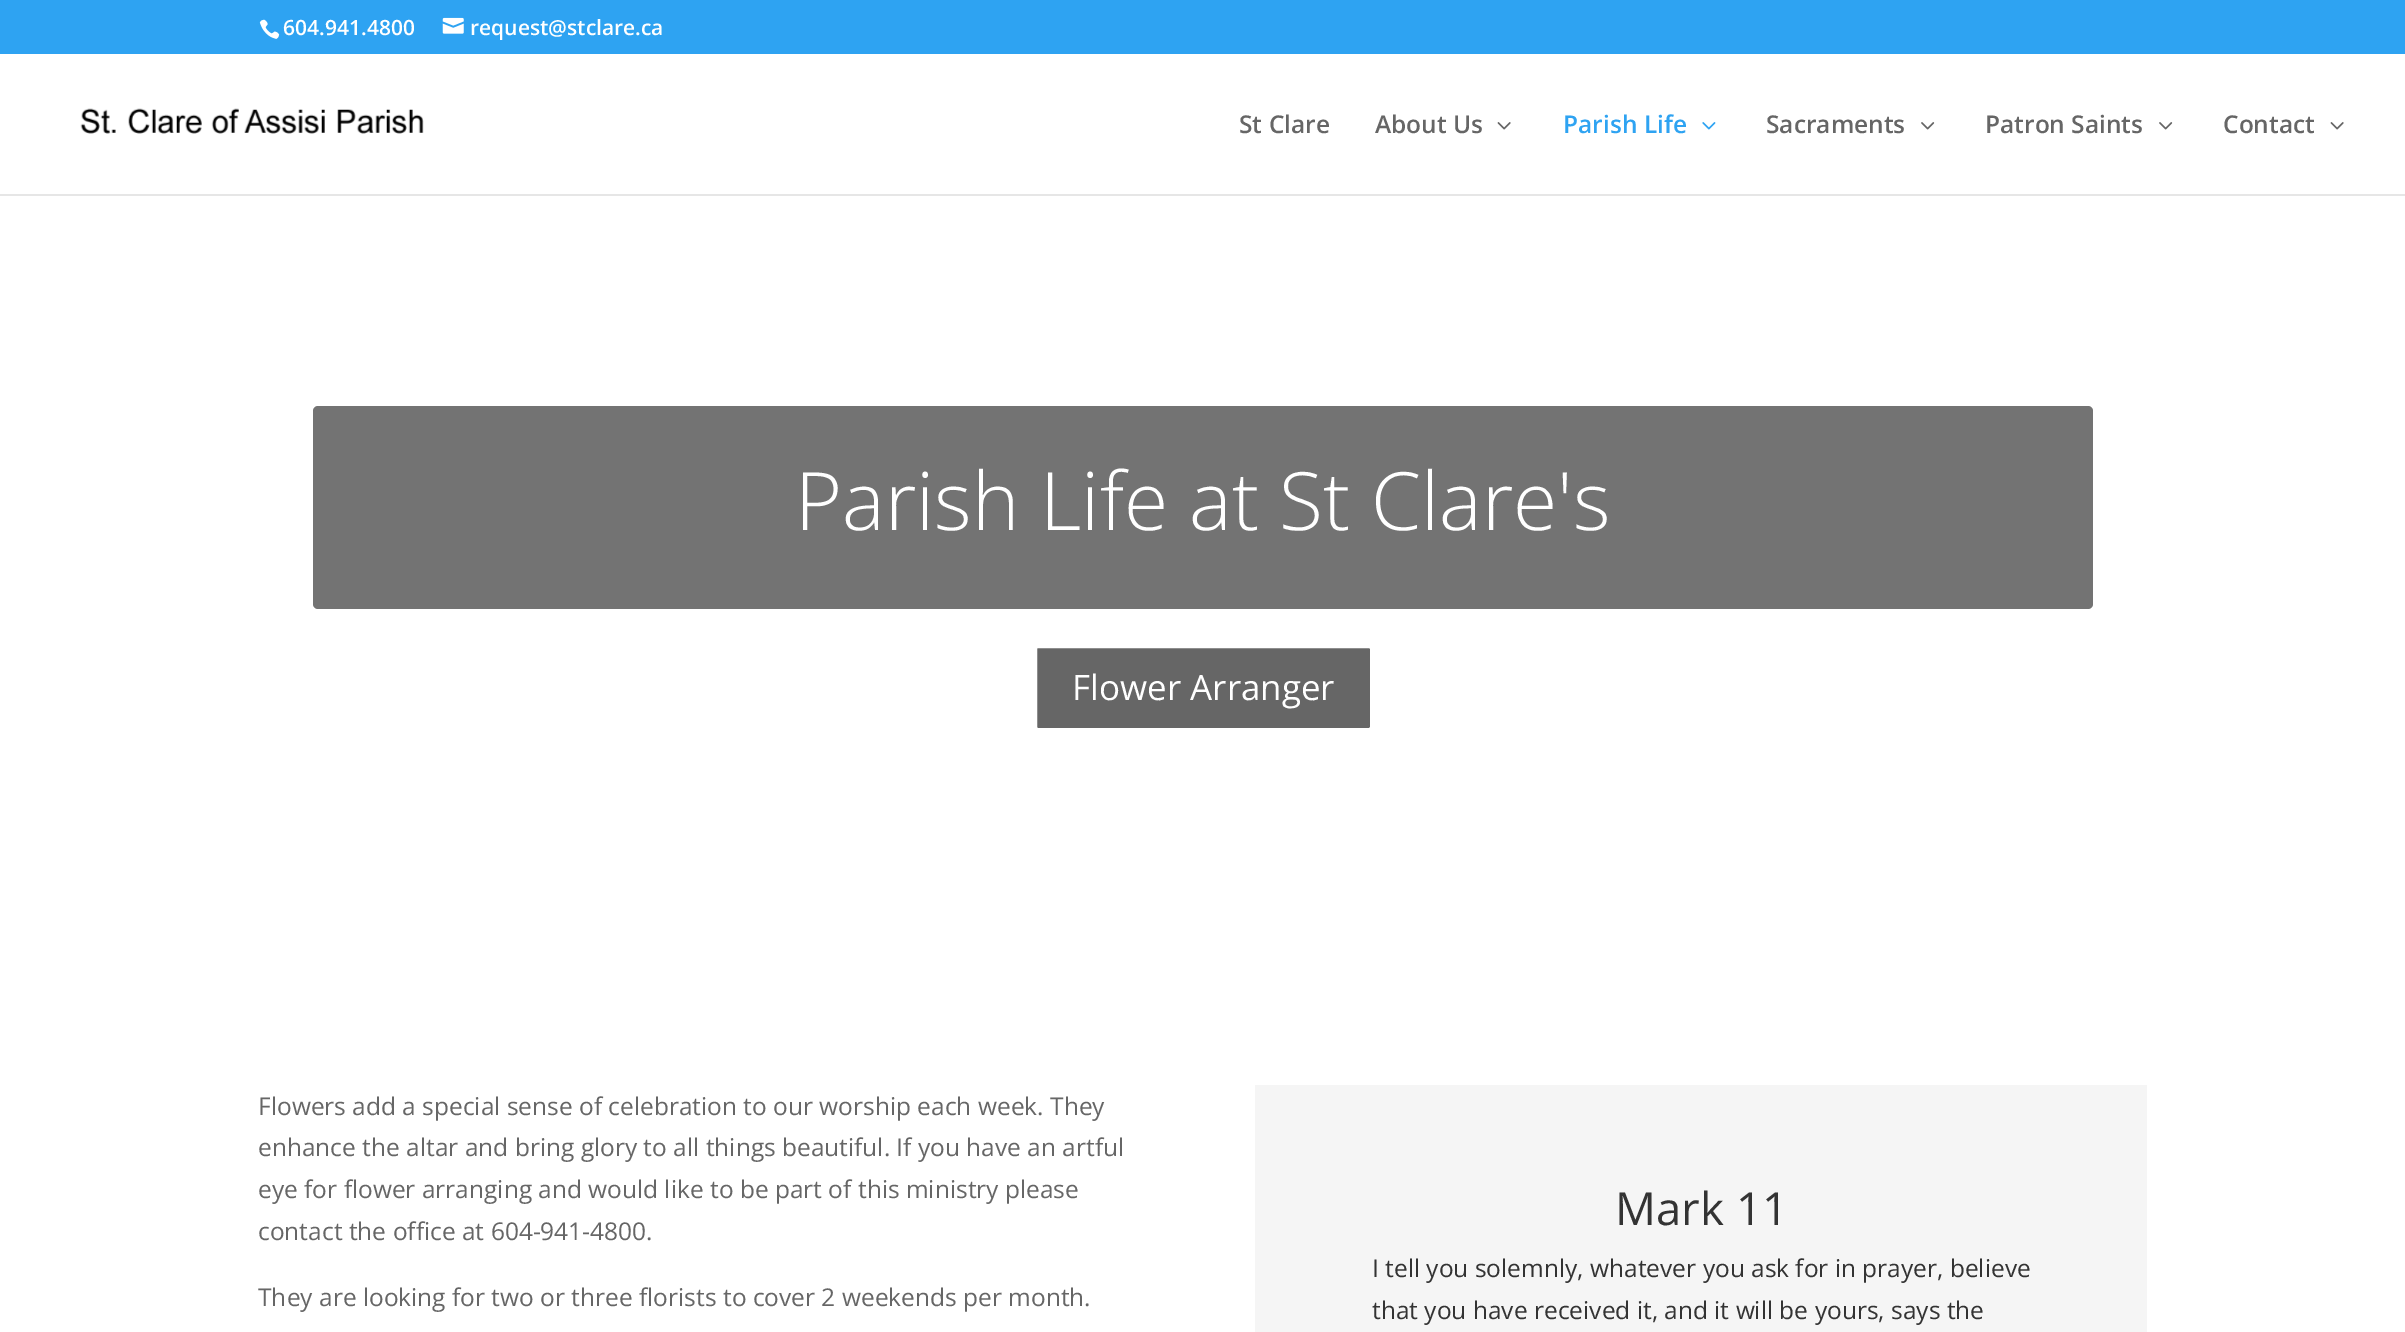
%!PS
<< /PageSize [2405 1332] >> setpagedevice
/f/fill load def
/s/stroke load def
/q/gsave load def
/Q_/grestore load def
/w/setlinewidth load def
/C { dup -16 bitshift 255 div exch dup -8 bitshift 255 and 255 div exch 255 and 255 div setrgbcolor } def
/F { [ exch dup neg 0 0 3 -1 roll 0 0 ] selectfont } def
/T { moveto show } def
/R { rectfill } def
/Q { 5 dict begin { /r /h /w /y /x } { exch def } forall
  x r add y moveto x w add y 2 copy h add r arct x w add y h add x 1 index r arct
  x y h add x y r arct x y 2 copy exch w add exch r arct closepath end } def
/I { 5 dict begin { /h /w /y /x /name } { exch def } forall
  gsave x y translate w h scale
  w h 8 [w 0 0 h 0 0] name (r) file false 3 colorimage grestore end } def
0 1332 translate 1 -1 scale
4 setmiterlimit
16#FFFFFF C
0 0 2405 1332 R
16#2EA3F2 C
0 0 2405 54 R
(1.rgb) 259 19 21 20 I
/OpenSans-SemiBold 21 F
16#FFFFFF C
(604.941.4800) 283 35 T
(2.rgb) 442 17 22 17 I
(request@stclare.ca) 470 35 T
16#E6E6E6 C
0 194 2405 2 R
(3.rgb) 80 108 344 26 I
/OpenSans-SemiBold 24.5 F
16#666666 C
(St Clare) 1239 133 T
(About Us) 1375 133 T
(4.rgb) 1497 122 14 8 I
16#2EA3F2 C
(Parish Life) 1563 133 T
(5.rgb) 1702 122 14 8 I
16#666666 C
(Sacraments) 1766 133 T
(6.rgb) 1921 122 14 8 I
(Patron Saints) 1985 133 T
(6.rgb) 2159 122 14 8 I
(Contact) 2223 133 T
(4.rgb) 2330 122 14 8 I
16#737373 C
313 406 1780 203 5 Q f
/OpenSans-Light 80.5 F
16#FFFFFF C
(Parish Life at St Clare's) 795 530 T
16#666666 C
1035 646 337 84 3 Q q f Q_
16#FFFFFF C
4 w
s
/OpenSans-Regular 35 F
(Flower Arranger) 1072 700 T
/OpenSans-Regular 24.5 F
16#666666 C
(Flowers add a special sense of celebration to our worship each week. They) 258 1115 T
(enhance the altar and bring glory to all things beautiful. If you have an artful) 258 1156 T
(eye for flower arranging and would like to be part of this ministry please) 258 1198 T
(contact the office at 604-941-4800.) 258 1240 T
(They are looking for two or three florists to cover 2 weekends per month.) 258 1306 T
16#F5F5F5 C
1255 1085 892 247 R
/OpenSans-Regular 45.5 F
16#333333 C
(Mark 11) 1615 1225 T
/OpenSans-Regular 24.5 F
(I tell you solemnly, whatever you ask for in prayer, believe) 1372 1277 T
(that you have received it, and it will be yours, says the) 1372 1319 T
showpage
